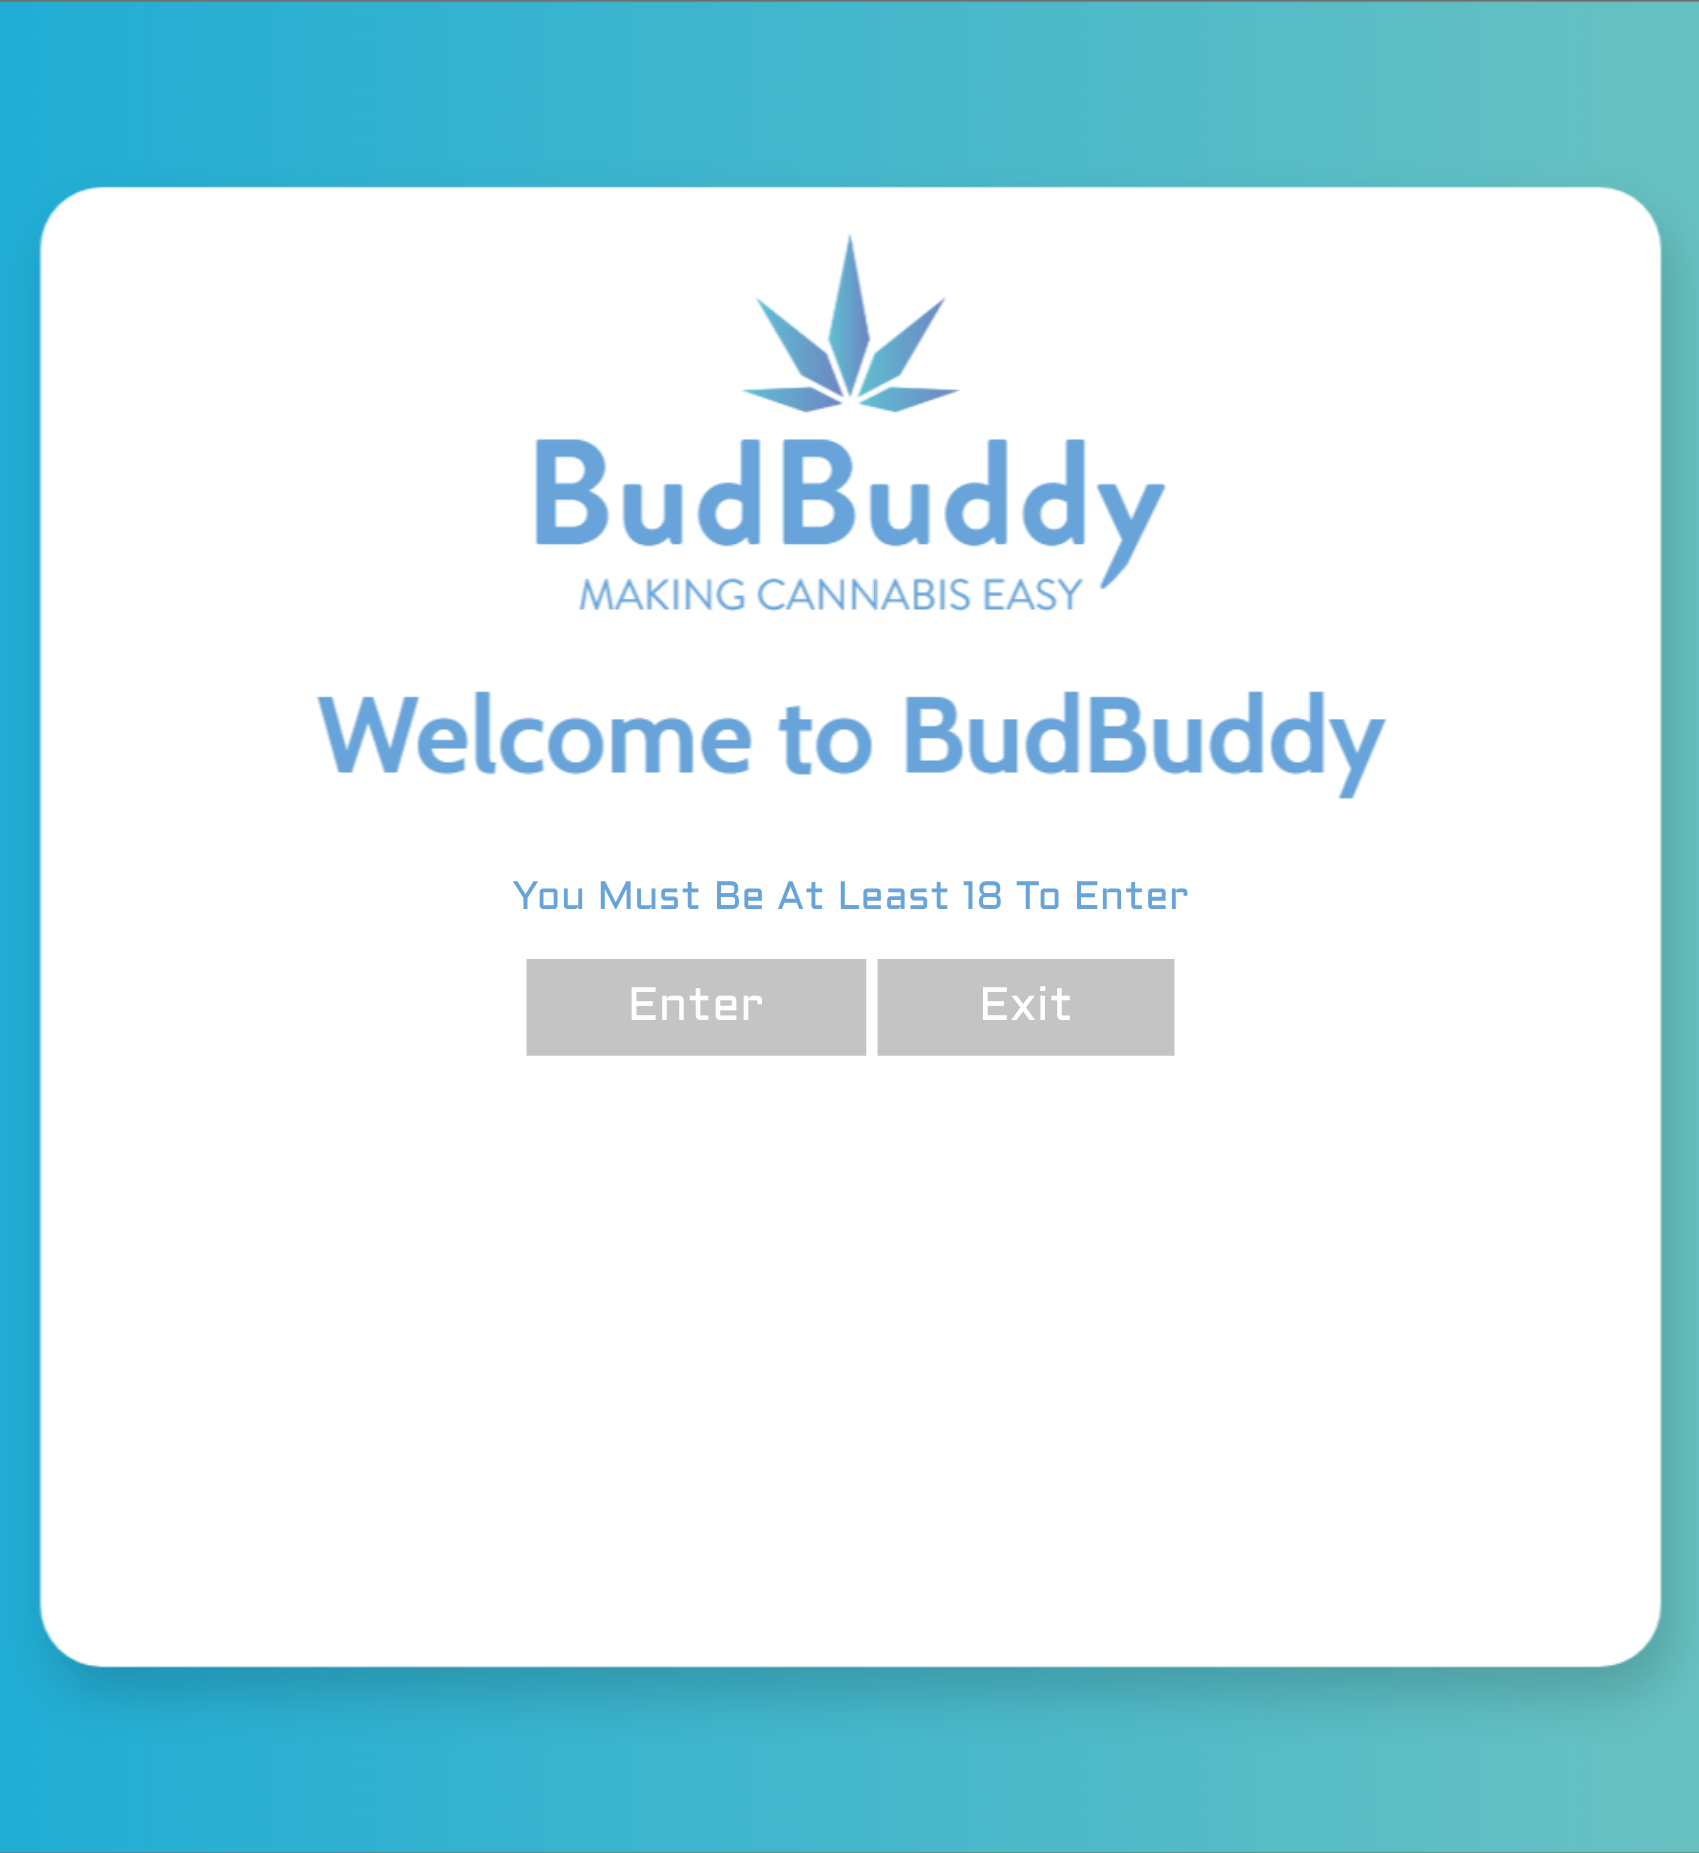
%!PS
<< /PageSize [1699 1853] >> setpagedevice
/C { dup -16 bitshift 255 div exch dup -8 bitshift 255 and 255 div exch 255 and 255 div setrgbcolor } def
/R { rectfill } def
/I { 5 dict begin { /h /w /y /x /name } { exch def } forall
  gsave x y translate w h scale
  w h 8 [w 0 0 h 0 0] name (r) file false 3 colorimage grestore end } def
0 1853 translate 1 -1 scale
4 setmiterlimit
16#FFFFFF C
0 0 1699 1853 R
(1.rgb) 0 0 1699 1853 I
(2.rgb) 512 881 676 175 I
showpage
